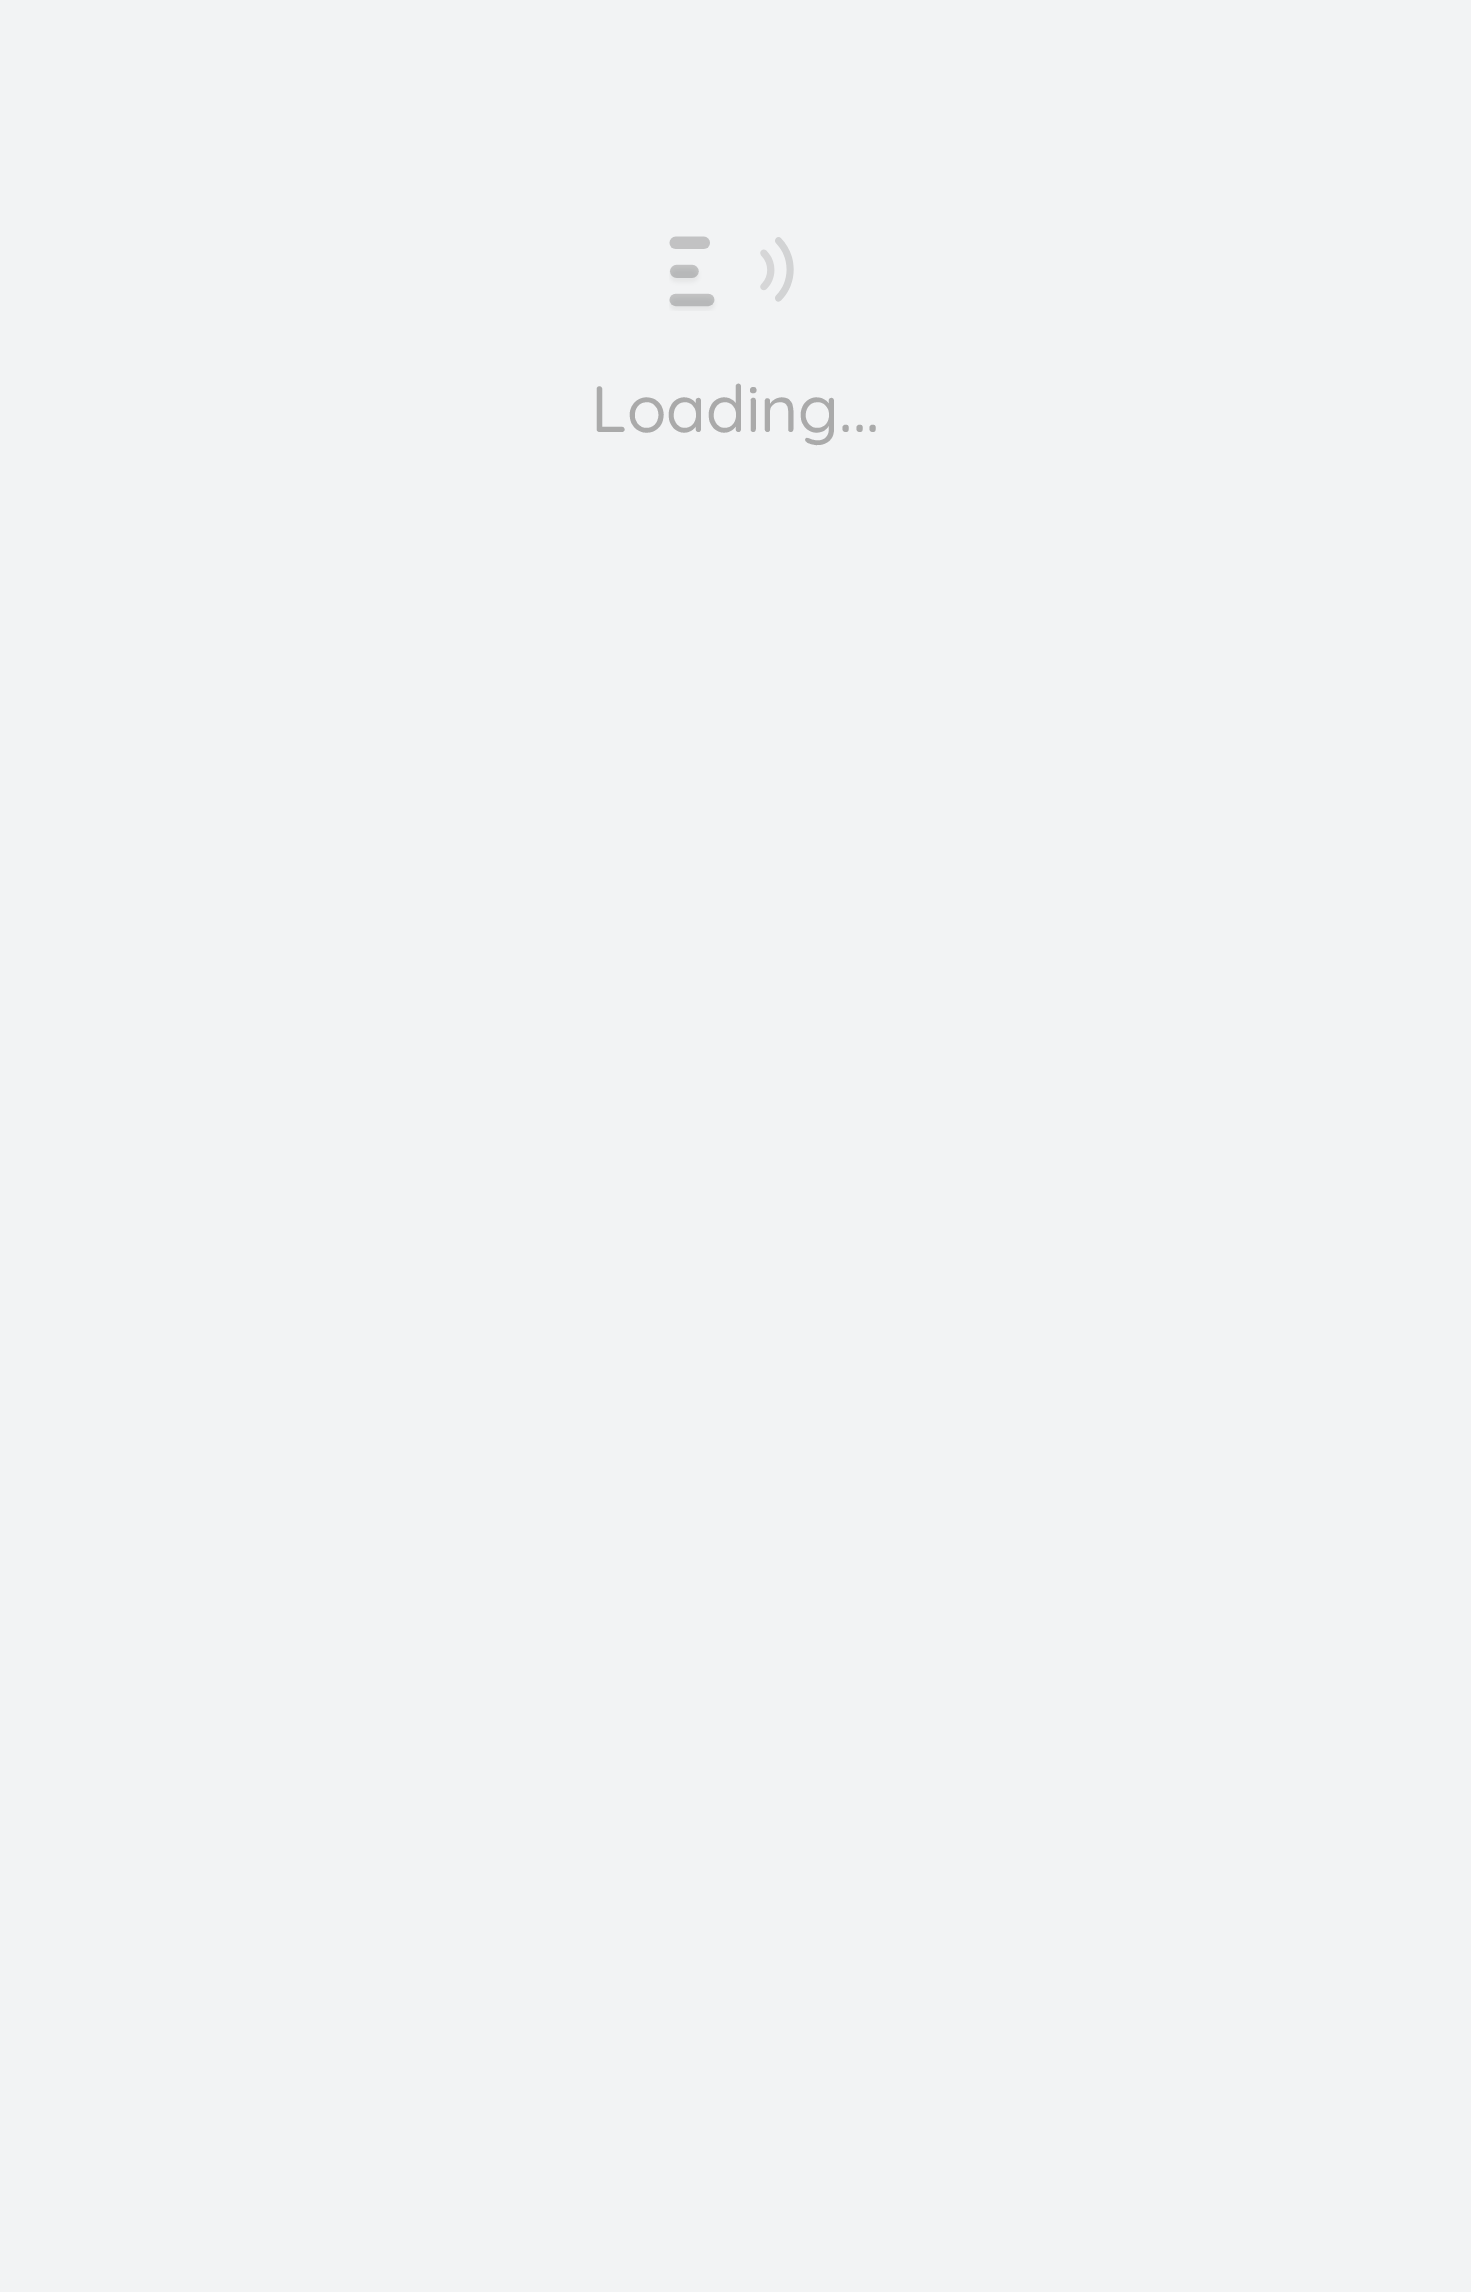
%!PS
<< /PageSize [1471 2292] >> setpagedevice
/C { dup -16 bitshift 255 div exch dup -8 bitshift 255 and 255 div exch 255 and 255 div setrgbcolor } def
/F { [ exch dup neg 0 0 3 -1 roll 0 0 ] selectfont } def
/T { moveto show } def
/R { rectfill } def
/I { 5 dict begin { /h /w /y /x /name } { exch def } forall
  gsave x y translate w h scale
  w h 8 [w 0 0 h 0 0] name (r) file false 3 colorimage grestore end } def
0 2292 translate 1 -1 scale
4 setmiterlimit
16#F2F3F4 C
0 0 1471 2292 R
(1.rgb) 669 236 125 75 I
/Quicksand-Medium 65.5 F
16#AAAAAA C
(Loading...) 591 432 T
showpage
